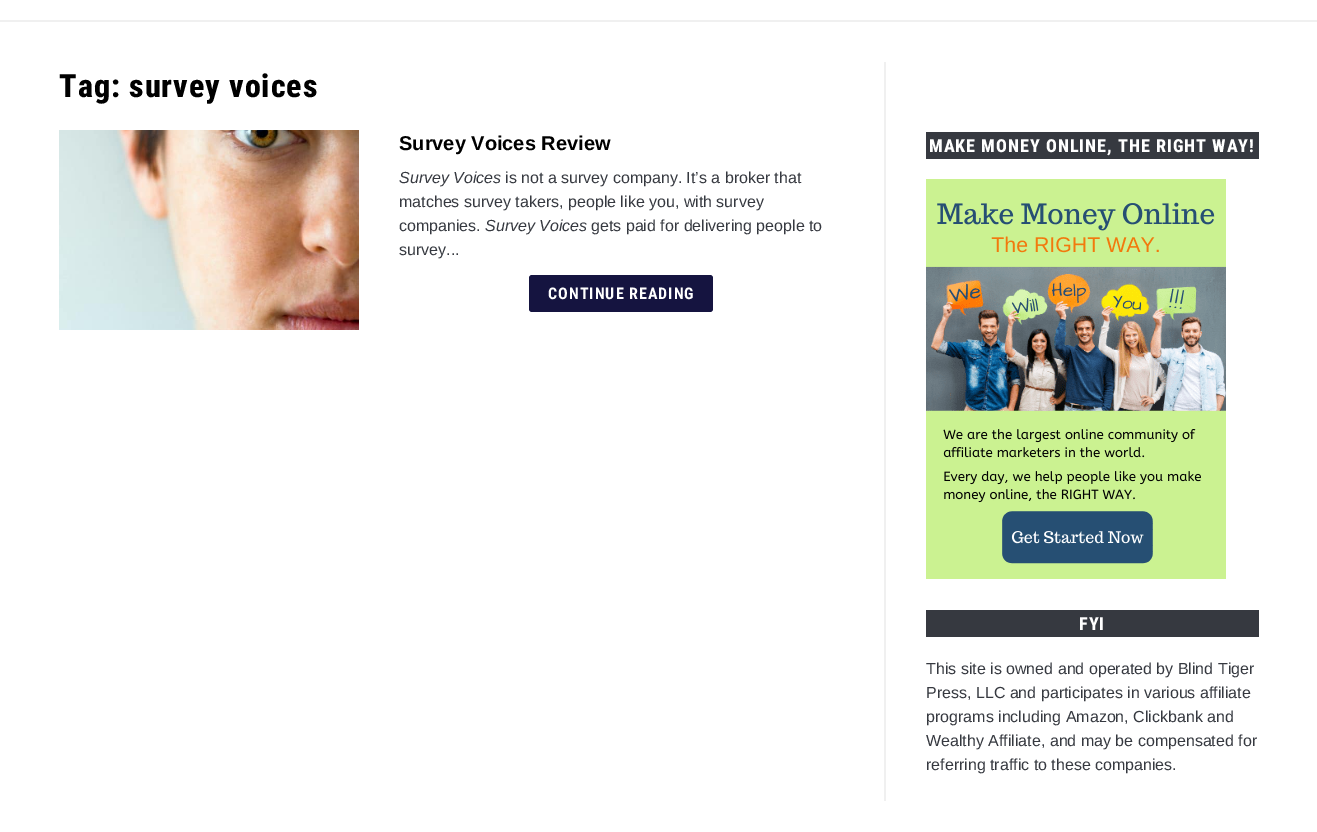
%!PS
<< /PageSize [1317 832] >> setpagedevice
/m/moveto load def
/f/fill load def
/C { dup -16 bitshift 255 div exch dup -8 bitshift 255 and 255 div exch 255 and 255 div setrgbcolor } def
/F { [ exch dup neg 0 0 3 -1 roll 0 0 ] selectfont } def
/T { moveto show } def
/R { rectfill } def
/Q { 5 dict begin { /r /h /w /y /x } { exch def } forall
  x r add y moveto x w add y 2 copy h add r arct x w add y h add x 1 index r arct
  x y h add x y r arct x y 2 copy exch w add exch r arct closepath end } def
/I { 5 dict begin { /h /w /y /x /name } { exch def } forall
  gsave x y translate w h scale
  w h 8 [w 0 0 h 0 0] name (r) file false 3 colorimage grestore end } def
0 832 translate 1 -1 scale
4 setmiterlimit
16#FFFFFF C
0 0 1317 832 R
16#F0F0F0 C
0 20 1317 2 R
/RobotoCondensed-ExtraBold 32 F
16#000000 C
59 97 m 1 0 (Tag: survey voices) ashow
(1.rgb) 59 130 300 200 I
/LiberationSans-Bold 20 F
(Survey Voices Review) 399 150 T
/LiberationSans-Italic 16 F
16#363940 C
(Survey Voices) 399 183 T
/LiberationSans-Regular 16 F
(is not a survey company. It’s a broker that) 505 183 T
(matches survey takers, people like you, with survey) 399 207 T
(companies.) 399 231 T
/LiberationSans-Italic 16 F
(Survey Voices) 485 231 T
/LiberationSans-Regular 16 F
(gets paid for delivering people to) 591 231 T
(survey...) 399 255 T
16#151440 C
529 275 184 37 3 Q f
/RobotoCondensed-Bold 16 F
16#FFFFFF C
548 299 m 1 0 (CONTINUE READING) ashow
16#F0F0F0 C
884 62 2 739 R
16#363940 C
926 132 333 27 R
/RobotoCondensed-ExtraBold 18 F
16#FFFFFF C
929 152 m 1 0 (MAKE MONEY ONLINE, THE RIGHT WAY!) ashow
(2.rgb) 926 179 300 400 I
16#363940 C
926 610 333 27 R
16#FFFFFF C
1079 630 m 1 0 (FYI) ashow
/LiberationSans-Regular 16 F
16#363940 C
(This site is owned and operated by Blind Tiger) 926 674 T
(Press, LLC and participates in various affiliate) 926 698 T
(programs including Amazon, Clickbank and) 926 722 T
(Wealthy Affiliate, and may be compensated for) 926 746 T
(referring traffic to these companies.) 926 770 T
showpage
